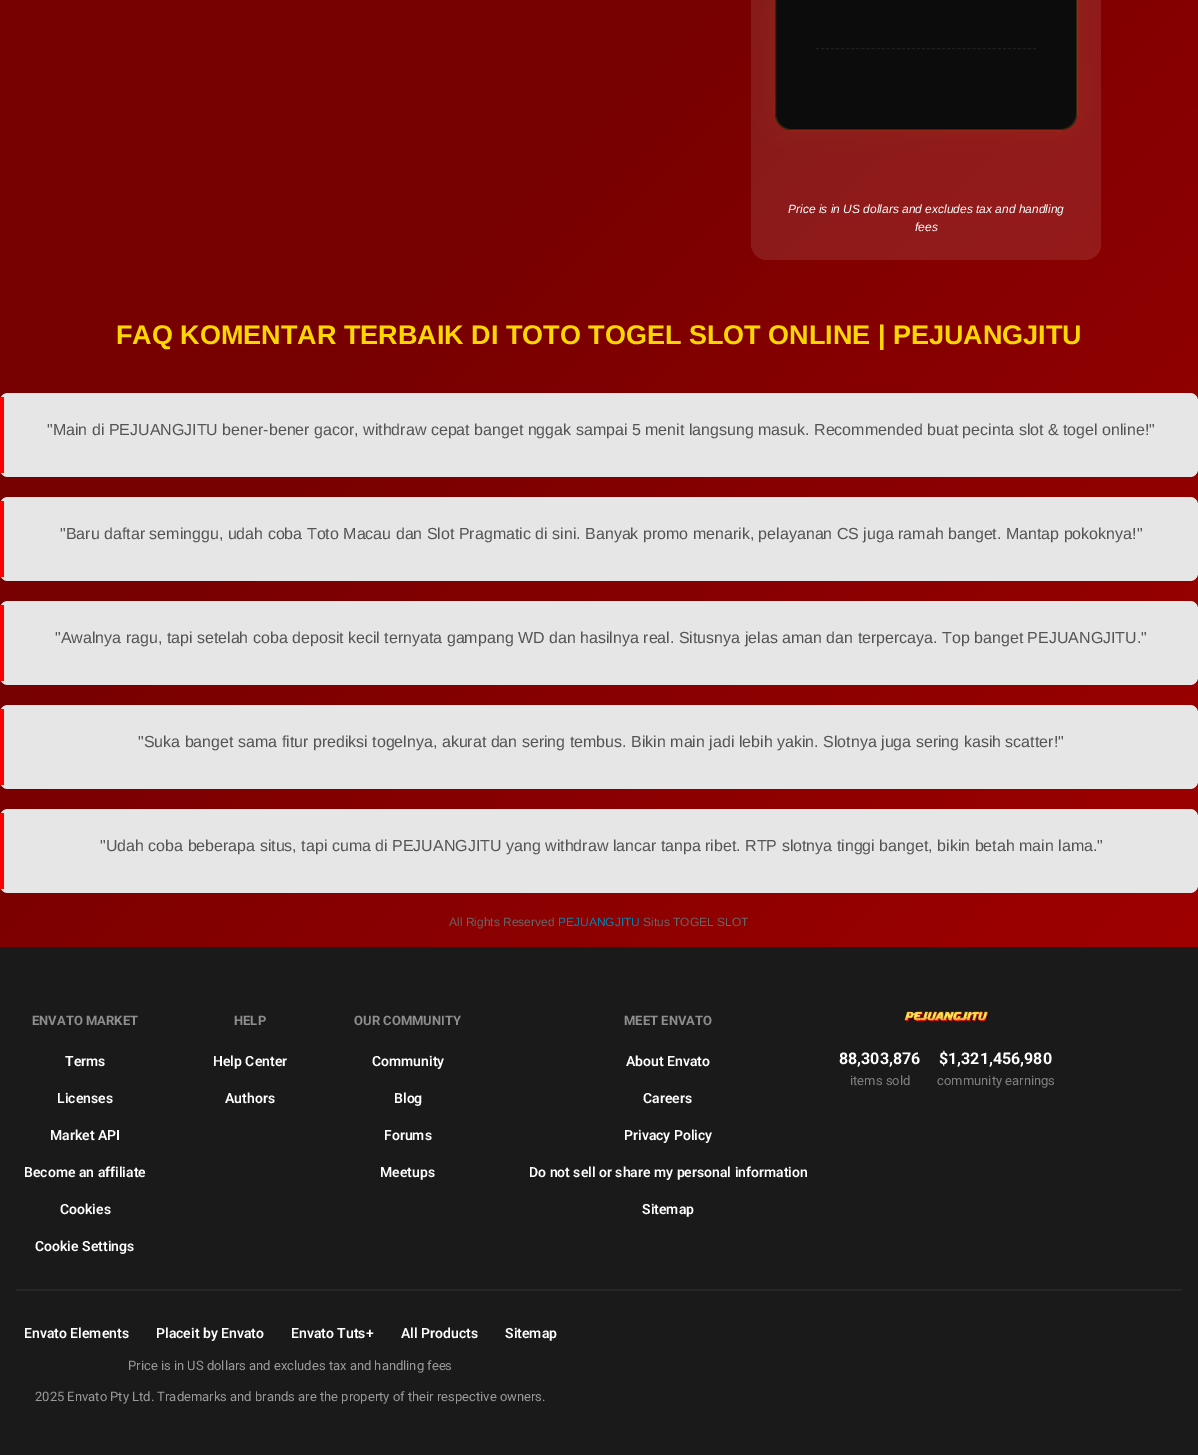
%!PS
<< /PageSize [1198 1455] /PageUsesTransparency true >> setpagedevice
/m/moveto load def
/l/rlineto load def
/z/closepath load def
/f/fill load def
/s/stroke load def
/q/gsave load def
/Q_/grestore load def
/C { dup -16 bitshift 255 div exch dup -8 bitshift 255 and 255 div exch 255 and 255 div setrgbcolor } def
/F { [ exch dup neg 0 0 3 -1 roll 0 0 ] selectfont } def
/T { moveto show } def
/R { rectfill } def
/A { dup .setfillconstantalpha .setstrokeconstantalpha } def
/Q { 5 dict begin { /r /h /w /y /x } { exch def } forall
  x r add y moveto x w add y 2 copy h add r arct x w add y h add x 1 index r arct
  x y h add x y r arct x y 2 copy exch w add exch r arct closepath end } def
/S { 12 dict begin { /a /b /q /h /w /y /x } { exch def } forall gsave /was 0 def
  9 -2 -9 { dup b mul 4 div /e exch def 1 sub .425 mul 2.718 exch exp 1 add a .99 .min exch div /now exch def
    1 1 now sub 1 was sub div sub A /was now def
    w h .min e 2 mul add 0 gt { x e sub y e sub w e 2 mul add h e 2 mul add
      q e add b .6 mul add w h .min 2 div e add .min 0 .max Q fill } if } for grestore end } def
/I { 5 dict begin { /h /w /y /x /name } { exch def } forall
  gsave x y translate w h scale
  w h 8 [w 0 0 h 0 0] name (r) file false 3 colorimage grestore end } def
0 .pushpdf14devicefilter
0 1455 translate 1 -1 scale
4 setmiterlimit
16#FFFFFF C
0 0 1198 1455 R
q 0 0 m 1198 0 l 0 947 l -1198 0 l z clip newpath
<< /ShadingType 2 /ColorSpace /DeviceRGB /Coords [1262 1391 -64 64] /Extend [true true] /Function << /FunctionType 3 /Domain [0 1] /Functions [<< /FunctionType 2 /Domain [0 1] /C0 [.678 0 0] /C1 [.467 0 0] /N 1 >> << /FunctionType 2 /Domain [0 1] /C0 [.467 0 0] /C1 [.467 0 0] /N 1 >>] /Bounds [.74] /Encode [0 1 0 1] >> >> shfill Q_
0.1 A
751 -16 350 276 16 Q f
1 A
16#FFD700 C
775 -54 302 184 16 12.5 .06 S
16#0C0C0C C
775 -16 302 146 16 Q f
0.15 A
16#FFD700 C
775.5 -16.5 301 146 15.5 Q s
1 A
16#1F1F1F C
[3 2.05] 0 setdash
816 48.5 m 220 0 l s
/LiberationSans-Italic 12 F
16#FFFFFF C
(Price is in US dollars and excludes tax and handling) 788 213 T
(fees) 915 231 T
/LiberationSans-Bold 27 F
16#FFD700 C
(FAQ KOMENTAR TERBAIK DI TOTO TOGEL SLOT ONLINE | PEJUANGJITU) 116 344 T
16#E6E6E6 C
0 393 1198 84 8 Q f
16#FF0000 C
0 397 4 76 R
/LiberationSans-Regular 16 F
16#545454 C
("Main di PEJUANGJITU bener-bener gacor, withdraw cepat banget nggak sampai 5 menit langsung masuk. Recommended buat pecinta slot & togel online!") 47 435 T
16#E6E6E6 C
0 497 1198 84 8 Q f
16#FF0000 C
0 501 4 76 R
16#545454 C
("Baru daftar seminggu, udah coba Toto Macau dan Slot Pragmatic di sini. Banyak promo menarik, pelayanan CS juga ramah banget. Mantap pokoknya!") 60 539 T
16#E6E6E6 C
0 601 1198 84 8 Q f
16#FF0000 C
0 605 4 76 R
16#545454 C
("Awalnya ragu, tapi setelah coba deposit kecil ternyata gampang WD dan hasilnya real. Situsnya jelas aman dan terpercaya. Top banget PEJUANGJITU.") 55 643 T
16#E6E6E6 C
0 705 1198 84 8 Q f
16#FF0000 C
0 709 4 76 R
16#545454 C
("Suka banget sama fitur prediksi togelnya, akurat dan sering tembus. Bikin main jadi lebih yakin. Slotnya juga sering kasih scatter!") 138 747 T
16#E6E6E6 C
0 809 1198 84 8 Q f
16#FF0000 C
0 813 4 76 R
16#545454 C
("Udah coba beberapa situs, tapi cuma di PEJUANGJITU yang withdraw lancar tanpa ribet. RTP slotnya tinggi banget, bikin betah main lama.") 100 851 T
/LiberationSans-Regular 12 F
16#666666 C
(All Rights Reserved) 449 926 T
16#0084B4 C
(PEJUANGJITU) 558 926 T
16#666666 C
(Situs TOGEL SLOT) 643 926 T
16#1A1A1A C
0 947 1198 508 R
/Roboto-Bold 13 F
16#8D8D8D C
(ENVATO MARKET) 32 1025 T
/Roboto-SemiBold 14 F
16#FFFFFF C
(Terms) 65 1066 T
(Licenses) 57 1103 T
(Market API) 50 1140 T
(Become an affiliate) 24 1177 T
(Cookies) 60 1214 T
(Cookie Settings) 35 1251 T
/Roboto-Bold 13 F
16#8D8D8D C
(HELP) 234 1025 T
/Roboto-SemiBold 14 F
16#FFFFFF C
(Help Center) 213 1066 T
(Authors) 225 1103 T
/Roboto-Bold 13 F
16#8D8D8D C
(OUR COMMUNITY) 354 1025 T
/Roboto-SemiBold 14 F
16#FFFFFF C
(Community) 372 1066 T
(Blog) 394 1103 T
(Forums) 384 1140 T
(Meetups) 380 1177 T
/Roboto-Bold 13 F
16#8D8D8D C
(MEET ENVATO) 624 1025 T
/Roboto-SemiBold 14 F
16#FFFFFF C
(About Envato) 626 1066 T
(Careers) 643 1103 T
(Privacy Policy) 624 1140 T
(Do not sell or share my personal information) 529 1177 T
(Sitemap) 642 1214 T
(1.rgb) 904 1011 85 11 I
/Roboto-Bold 16 F
(88,303,876) 839 1064 T
/Roboto-Regular 13 F
16#808080 C
(items sold) 850 1085 T
/Roboto-Bold 16 F
16#FFFFFF C
($1,321,456,980) 939 1064 T
/Roboto-Regular 13 F
16#808080 C
(community earnings) 937 1085 T
16#262626 C
16 1289 1166 2 R
/Roboto-SemiBold 14 F
16#FFFFFF C
(Envato Elements) 24 1338 T
(Placeit by Envato) 156 1338 T
(Envato Tuts+) 291 1338 T
(All Products) 401 1338 T
(Sitemap) 505 1338 T
/Roboto-Regular 13 F
16#999999 C
(Price is in US dollars and excludes tax and handling fees) 128 1370 T
(2025 Envato Pty Ltd. Trademarks and brands are the property of their respective owners.) 35 1401 T
.poppdf14devicefilter showpage
